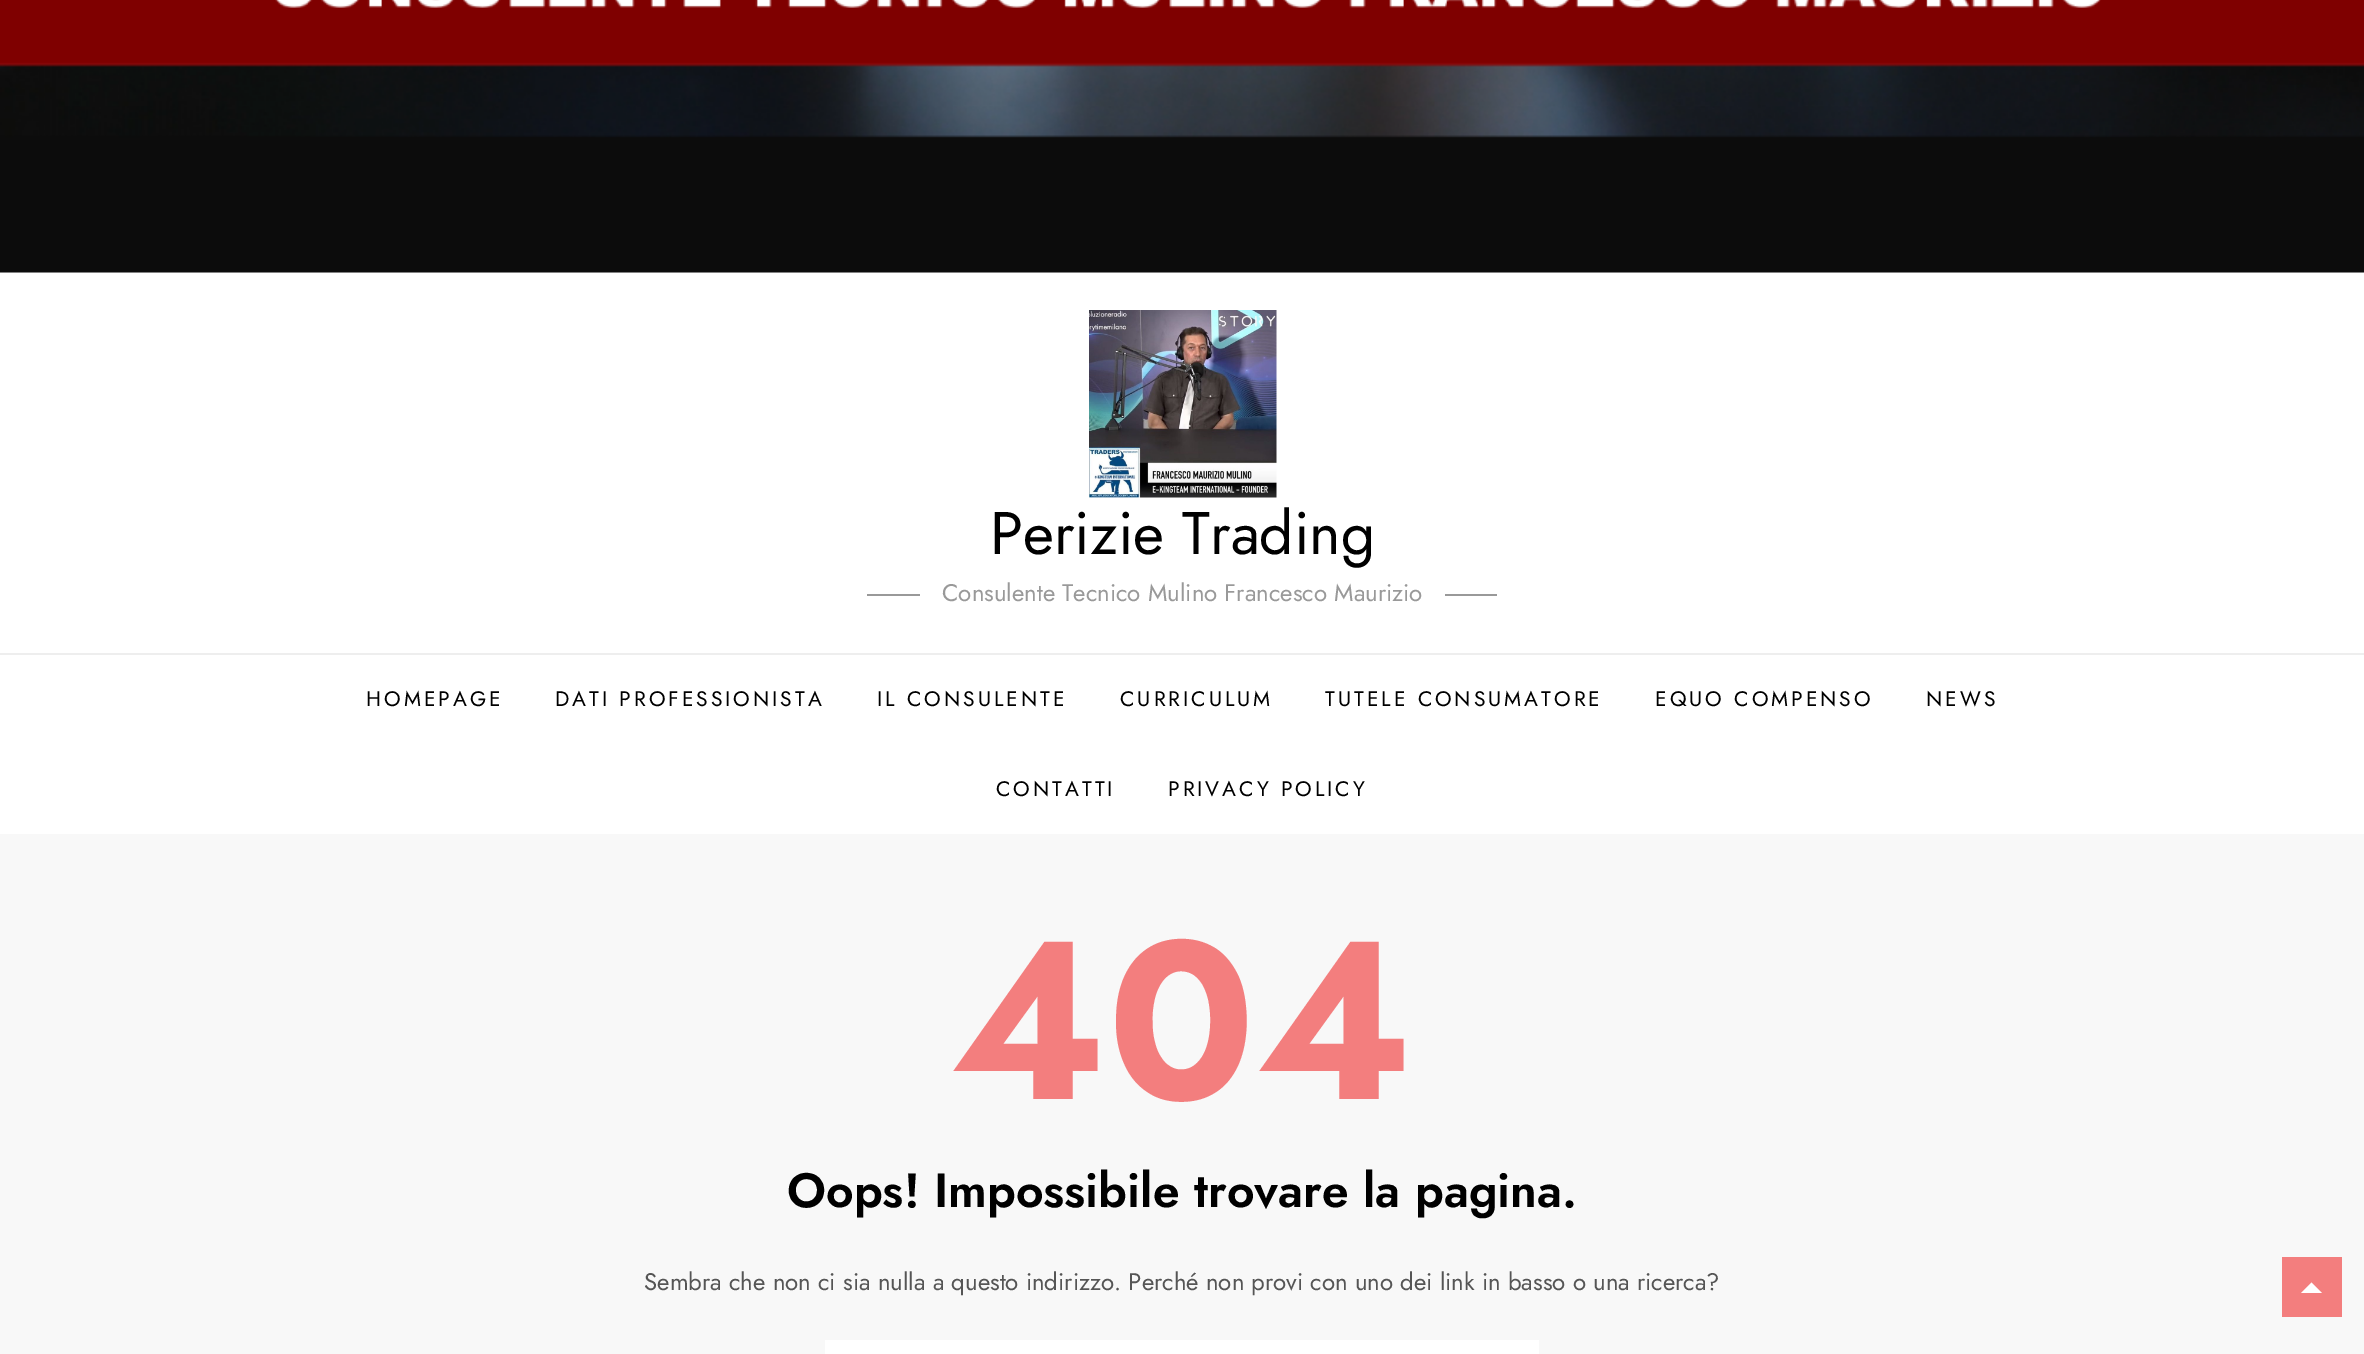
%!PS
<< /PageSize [2364 1354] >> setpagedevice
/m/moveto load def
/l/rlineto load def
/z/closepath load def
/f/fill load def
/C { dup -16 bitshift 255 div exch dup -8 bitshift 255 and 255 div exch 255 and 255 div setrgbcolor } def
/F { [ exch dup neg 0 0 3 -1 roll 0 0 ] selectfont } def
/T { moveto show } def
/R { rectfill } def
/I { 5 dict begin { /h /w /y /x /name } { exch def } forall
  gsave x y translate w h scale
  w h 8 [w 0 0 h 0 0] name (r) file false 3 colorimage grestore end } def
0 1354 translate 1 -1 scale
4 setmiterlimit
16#F8F8F8 C
0 0 2364 1354 R
(1.rgb) 0 0 2364 273 I
16#FFFFFF C
0 273 2364 561 R
(2.rgb) 1089 310 188 188 I
/Jost-Regular 60 F
16#000000 C
(Perizie Trading) 990 554 T
16#999999 C
867 594 53 2 R
/Jost-Regular 24 F
(Consulente Tecnico Mulino Francesco Maurizio) 942 601 T
1445 594 52 2 R
16#EEEEEE C
0 653 2364 2 R
/Jost-Regular 21 F
16#000000 C
366 706 m 3 0 (HOMEPAGE) ashow
555 706 m 3 0 (DATI PROFESSIONISTA) ashow
877 706 m 3 0 (IL CONSULENTE) ashow
1120 706 m 3 0 (CURRICULUM) ashow
1325 706 m 3 0 (TUTELE CONSUMATORE) ashow
1655 706 m 3 0 (EQUO COMPENSO) ashow
1926 706 m 3 0 (NEWS) ashow
996 796 m 3 0 (CONTATTI) ashow
1168 796 m 3 0 (PRIVACY POLICY) ashow
/Jost-Bold 225 F
16#F37E7E C
(404) 950 1099 T
/Jost-SemiBold 48 F
16#000000 C
(Oops! Impossibile trovare la pagina.) 787 1207 T
/Jost-Regular 24 F
16#555555 C
(Sembra che non ci sia nulla a questo indirizzo. Perché non provi con uno dei link in basso o una ricerca?) 644 1290 T
16#FFFFFF C
825 1340 714 14 R
16#F37E7E C
2282 1257 60 60 R
16#FFFFFF C
2322 1293 m -21 0 l 10.5 -10.5 l z f
showpage
